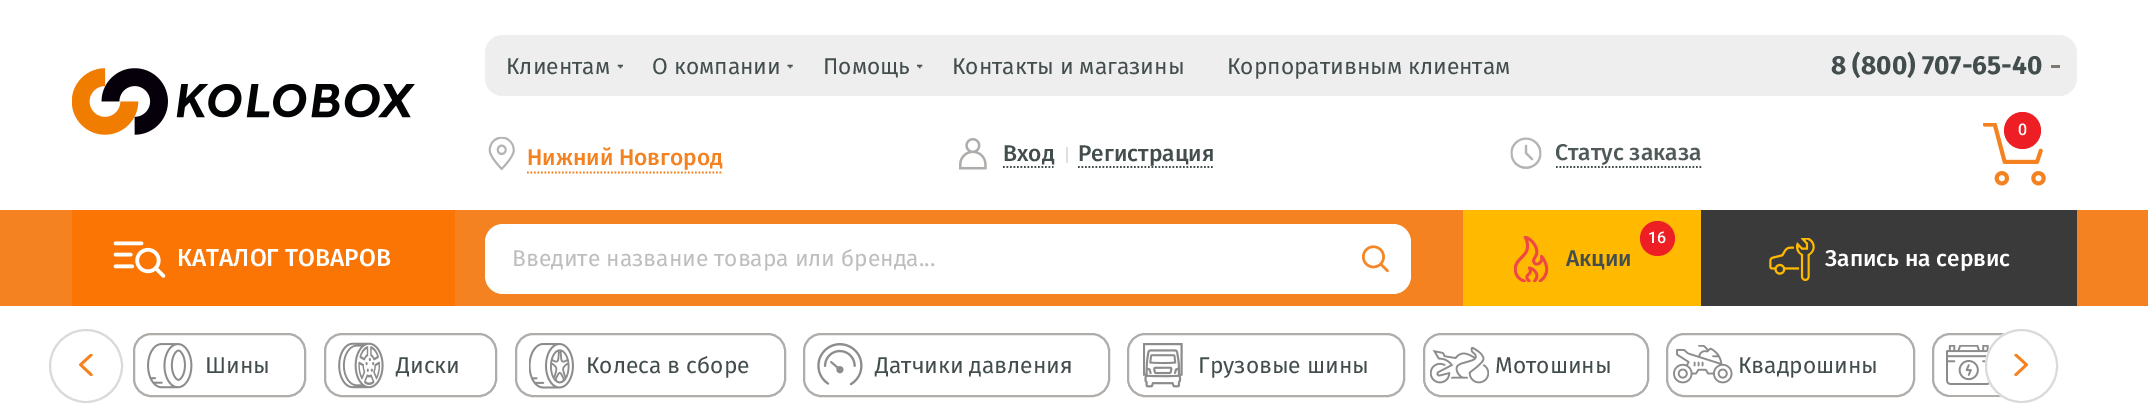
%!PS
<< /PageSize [2148 403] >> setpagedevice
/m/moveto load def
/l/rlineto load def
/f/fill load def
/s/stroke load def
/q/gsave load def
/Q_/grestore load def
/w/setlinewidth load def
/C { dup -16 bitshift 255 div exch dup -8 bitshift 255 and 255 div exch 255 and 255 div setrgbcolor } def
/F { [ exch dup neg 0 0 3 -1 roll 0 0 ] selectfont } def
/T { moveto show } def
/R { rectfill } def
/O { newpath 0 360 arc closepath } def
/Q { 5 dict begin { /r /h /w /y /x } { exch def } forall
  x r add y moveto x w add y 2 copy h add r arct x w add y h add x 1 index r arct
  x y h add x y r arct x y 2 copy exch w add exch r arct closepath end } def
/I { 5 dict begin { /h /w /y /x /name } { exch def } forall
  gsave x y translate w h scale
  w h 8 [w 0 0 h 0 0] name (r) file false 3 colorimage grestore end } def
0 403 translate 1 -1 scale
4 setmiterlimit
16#FFFFFF C
0 0 2148 403 R
16#F58220 C
0 210 2148 96 R
16#EEEEEE C
485 35 1592 61 18 Q f
/FiraSans-Regular 22.75 F
16#434D4D C
(Клиентам) 506 74 T
(1.rgb) 617 64 6 5 I
(О компании) 652 74 T
(2.rgb) 787 64 6 5 I
(Помощь) 823 74 T
(3.rgb) 917 64 6 5 I
(Контакты и магазины) 952 74 T
(Корпоративным клиентам) 1227 74 T
/FiraSans-Bold 26.25 F
(8 \(800\) 707-65-40) 1831 74 T
16#7D7872 C
2051 65 9 3 R
(4.rgb) 72 68 343 67 I
(5.rgb) 1983 123 63 63 I
16#ED1F24 C
2022.5 130.5 18.5 O f
/Roboto-Medium 16 F
16#FFFFFF C
(0) 2018 135 T
(6.rgb) 488 136 27 35 I
16#F58220 C
1.8 w
[1.75 1.75] 0 setdash
527 172.5 m 196 0 l s
/FiraSans-Medium 22.75 F
(Нижний Новгород) 527 165 T
(7.rgb) 959 138 28 32 I
16#434D4D C
(Вход) 1003 161 T
1003 167 m 50.5 0 l s
16#DFDFDF C
1066 147 2 16 R
16#434D4D C
(Регистрация) 1078 161 T
1078 167 m 136.5 0 l s
(8.rgb) 1510 137 32 32 I
1556 167 m 147 0 l s
16#505959 C
(Статус заказа) 1555 160 T
16#FA7503 C
72 210 383 96 R
(9.rgb) 113 241 53 37 I
/FiraSans-Medium 24.5 F
16#FFFFFF C
(КАТАЛОГ ТОВАРОВ) 177 266 T
485 224 926 70 18 Q f
/FiraSans-Regular 22.75 F
16#BEBEBE C
(Введите название товара или бренда...) 512 266 T
(10.rgb) 1362 245 27 28 I
16#FFBA00 C
1463 210 238 96 R
(11.rgb) 1514 236 35 46 I
/FiraSans-Medium 22.75 F
16#434D4D C
(Акции) 1566 266 T
16#ED1F24 C
1657.5 238.5 17.5 O f
/Roboto-Medium 16 F
16#FFFFFF C
(16) 1648 243 T
16#3A3A3A C
1701 210 376 96 R
(12.rgb) 1769 238 46 44 I
/FiraSans-Medium 22.75 F
16#FFFFFF C
(Запись на сервис) 1825 266 T
(13.rgb) 79 354 14 22 I
16#DADADA C
2 w
[] 0 setdash
86 366 36 O s
16#AFACA9 C
134 334 171 62 17 Q s
(14.rgb) 147 343 46 46 I
/FiraSans-Regular 22.75 F
16#434D4D C
(Шины) 205 373 T
16#AFACA9 C
325 334 171 62 17 Q s
(15.rgb) 338 342 46 47 I
16#434D4D C
(Диски) 396 373 T
16#AFACA9 C
516 334 269 62 17 Q s
(16.rgb) 529 343 45 46 I
16#434D4D C
(Колеса в сборе) 586 373 T
16#AFACA9 C
804 334 305 62 17 Q s
(17.rgb) 817 343 46 43 I
16#434D4D C
(Датчики давления) 875 373 T
16#AFACA9 C
1128 334 276 62 17 Q s
(18.rgb) 1143 343 40 45 I
16#434D4D C
(Грузовые шины) 1198 373 T
16#AFACA9 C
1424 334 224 62 17 Q s
(19.rgb) 1430 347 59 37 I
16#434D4D C
(Мотошины) 1495 373 T
16#AFACA9 C
1667 334 247 62 17 Q s
(20.rgb) 1673 345 60 39 I
16#434D4D C
(Квадрошины) 1738 373 T
q
72 333 1963 64 rectclip
16#AFACA9 C
1933 334 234 62 17 Q s
Q_
(21.rgb) 1946 345 44 40 I
16#FFFFFF C
1985 329 73 74 36.5 Q f
(22.rgb) 2014 354 14 22 I
16#DADADA C
1986 330 71 72 35.5 Q s
showpage
